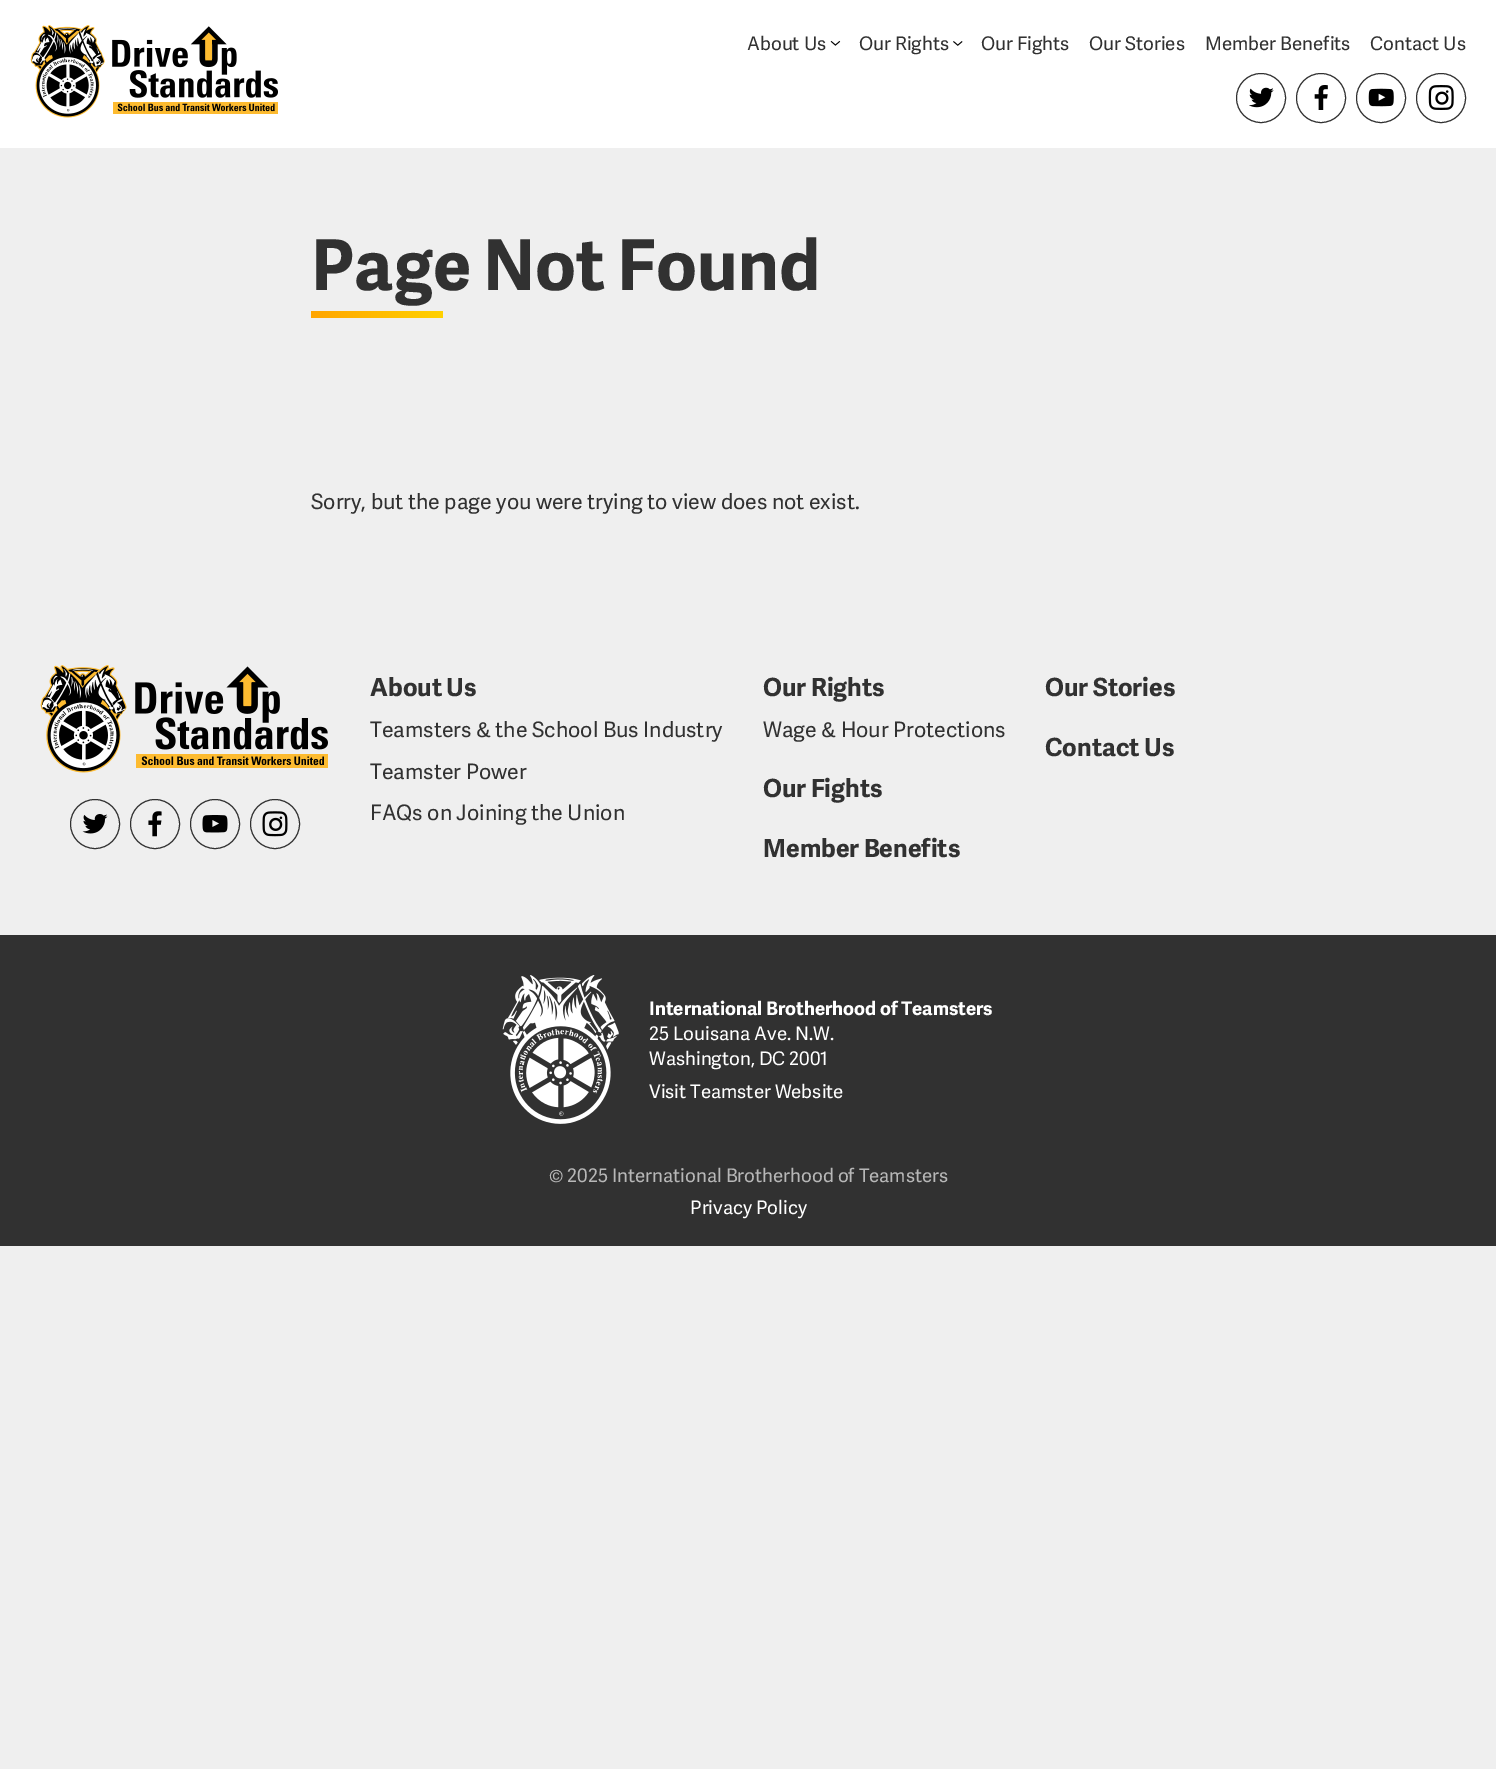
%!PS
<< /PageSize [1496 1769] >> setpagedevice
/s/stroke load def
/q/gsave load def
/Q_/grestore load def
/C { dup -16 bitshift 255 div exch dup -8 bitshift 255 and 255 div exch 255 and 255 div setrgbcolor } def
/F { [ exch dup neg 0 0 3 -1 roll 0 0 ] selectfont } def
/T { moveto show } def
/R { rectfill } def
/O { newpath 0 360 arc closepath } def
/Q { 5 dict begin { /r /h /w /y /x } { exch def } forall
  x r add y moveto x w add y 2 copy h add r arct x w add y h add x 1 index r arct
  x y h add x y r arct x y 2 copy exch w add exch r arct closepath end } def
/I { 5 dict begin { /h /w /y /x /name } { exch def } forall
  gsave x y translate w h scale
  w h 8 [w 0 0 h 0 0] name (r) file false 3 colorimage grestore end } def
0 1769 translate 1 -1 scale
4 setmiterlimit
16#EFEFEF C
0 0 1496 1769 R
16#FFFFFF C
0 0 1496 148 R
(1.rgb) 30 25 248 93 I
/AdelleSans-Regular 18.75 F
16#313131 C
(About Us) 747 50 T
(2.rgb) 830 40 11 6 I
(Our Rights) 859 50 T
(3.rgb) 953 41 10 5 I
(Our Fights) 981 50 T
(Our Stories) 1089 50 T
(Member Benefits) 1205 50 T
(Contact Us) 1370 50 T
1261 98 24.5 O s
(4.rgb) 1249 87 25 21 I
1321 98 24.5 O s
(5.rgb) 1314 85 14 25 I
1381 98 24.5 O s
(6.rgb) 1368 88 26 19 I
1441 98 24.5 O s
(7.rgb) 1428 85 26 25 I
/AdelleSans-Bold 70 F
(Page Not Found) 311 290 T
q 311 311 132 7 2.5 Q clip newpath
<< /ShadingType 2 /ColorSpace /DeviceRGB /Coords [442 308 312 321] /Extend [true true] /Function << /FunctionType 2 /Domain [0 1] /C0 [1 .82 0] /C1 [1 .647 0] /N 1 >> >> shfill Q_
/AdelleSans-Regular 21.25 F
(Sorry, but the page you were trying to view does not exist.) 311 509 T
(8.rgb) 40 665 288 108 I
/AdelleSans-Bold 25 F
(About Us) 370 696 T
/AdelleSans-Regular 21.25 F
(Teamsters & the School Bus Industry) 370 737 T
(Teamster Power) 370 779 T
(FAQs on Joining the Union) 370 820 T
/AdelleSans-Bold 25 F
(Our Rights) 763 696 T
/AdelleSans-Regular 21.25 F
(Wage & Hour Protections) 763 737 T
/AdelleSans-Bold 25 F
(Our Fights) 763 797 T
(Member Benefits) 763 857 T
(Our Stories) 1045 696 T
(Contact Us) 1045 756 T
95 824 24.5 O s
(9.rgb) 82 814 26 20 I
155 824 24.5 O s
(10.rgb) 148 811 14 26 I
215 824 24.5 O s
(11.rgb) 202 815 26 18 I
275 824 24.5 O s
(12.rgb) 262 811 26 26 I
0 935 1496 311 R
(13.rgb) 502 975 117 149 I
/AdelleSans-Bold 18.75 F
16#FFFFFF C
(International Brotherhood of Teamsters) 649 1015 T
/AdelleSans-Regular 18.75 F
(25 Louisana Ave. N.W.) 649 1040 T
(Washington, DC 2001) 649 1065 T
(Visit Teamster Website) 649 1098 T
16#B7B7B7 C
(© 2025 International Brotherhood of Teamsters) 549 1182 T
16#FFFFFF C
(Privacy Policy) 690 1214 T
showpage
